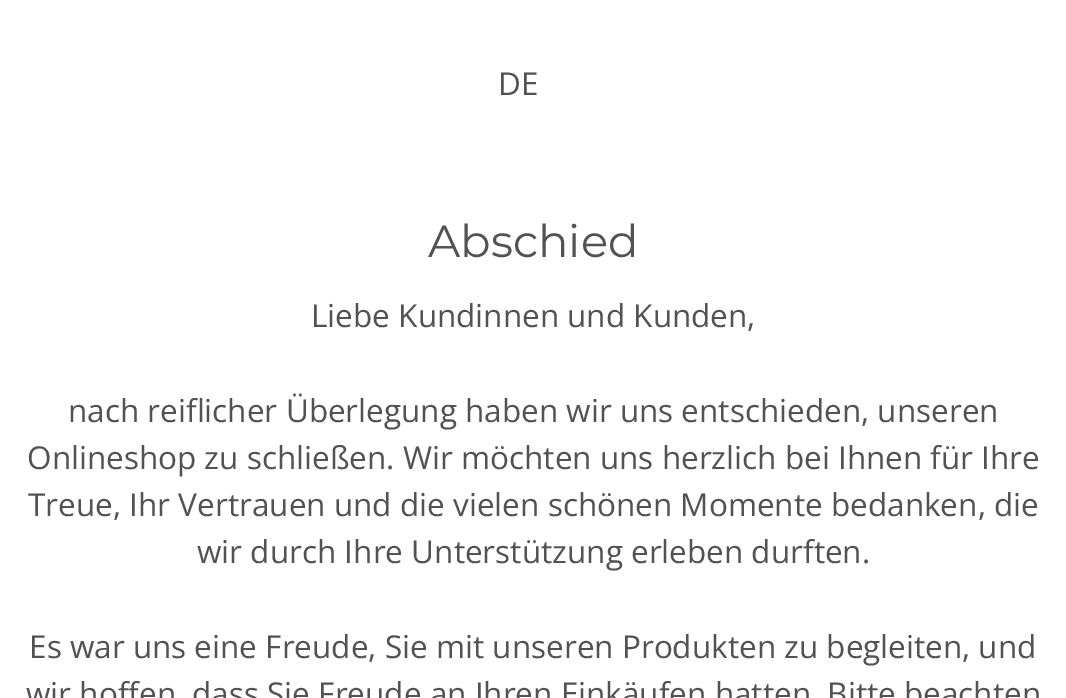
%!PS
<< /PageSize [1066 698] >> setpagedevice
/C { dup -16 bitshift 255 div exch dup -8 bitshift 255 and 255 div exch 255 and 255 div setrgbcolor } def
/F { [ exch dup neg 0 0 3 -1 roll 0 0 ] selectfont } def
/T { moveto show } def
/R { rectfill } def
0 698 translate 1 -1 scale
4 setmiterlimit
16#FFFFFF C
0 0 1066 698 R
/OpenSans-Regular 31.5 F
16#525252 C
(DE) 498 95 T
/Montserrat-Regular 45 F
(Abschied) 428 257 T
/OpenSans-Regular 31.5 F
(Liebe Kundinnen und Kunden,) 311 327 T
(nach reiflicher Überlegung haben wir uns entschieden, unseren) 68 422 T
(Onlineshop zu schließen. Wir möchten uns herzlich bei Ihnen für Ihre) 27 469 T
(Treue, Ihr Vertrauen und die vielen schönen Momente bedanken, die) 28 516 T
(wir durch Ihre Unterstützung erleben durften.) 197 563 T
(Es war uns eine Freude, Sie mit unseren Produkten zu begleiten, und) 29 658 T
(wir hoffen, dass Sie Freude an Ihren Einkäufen hatten. Bitte beachten) 26 705 T
showpage
